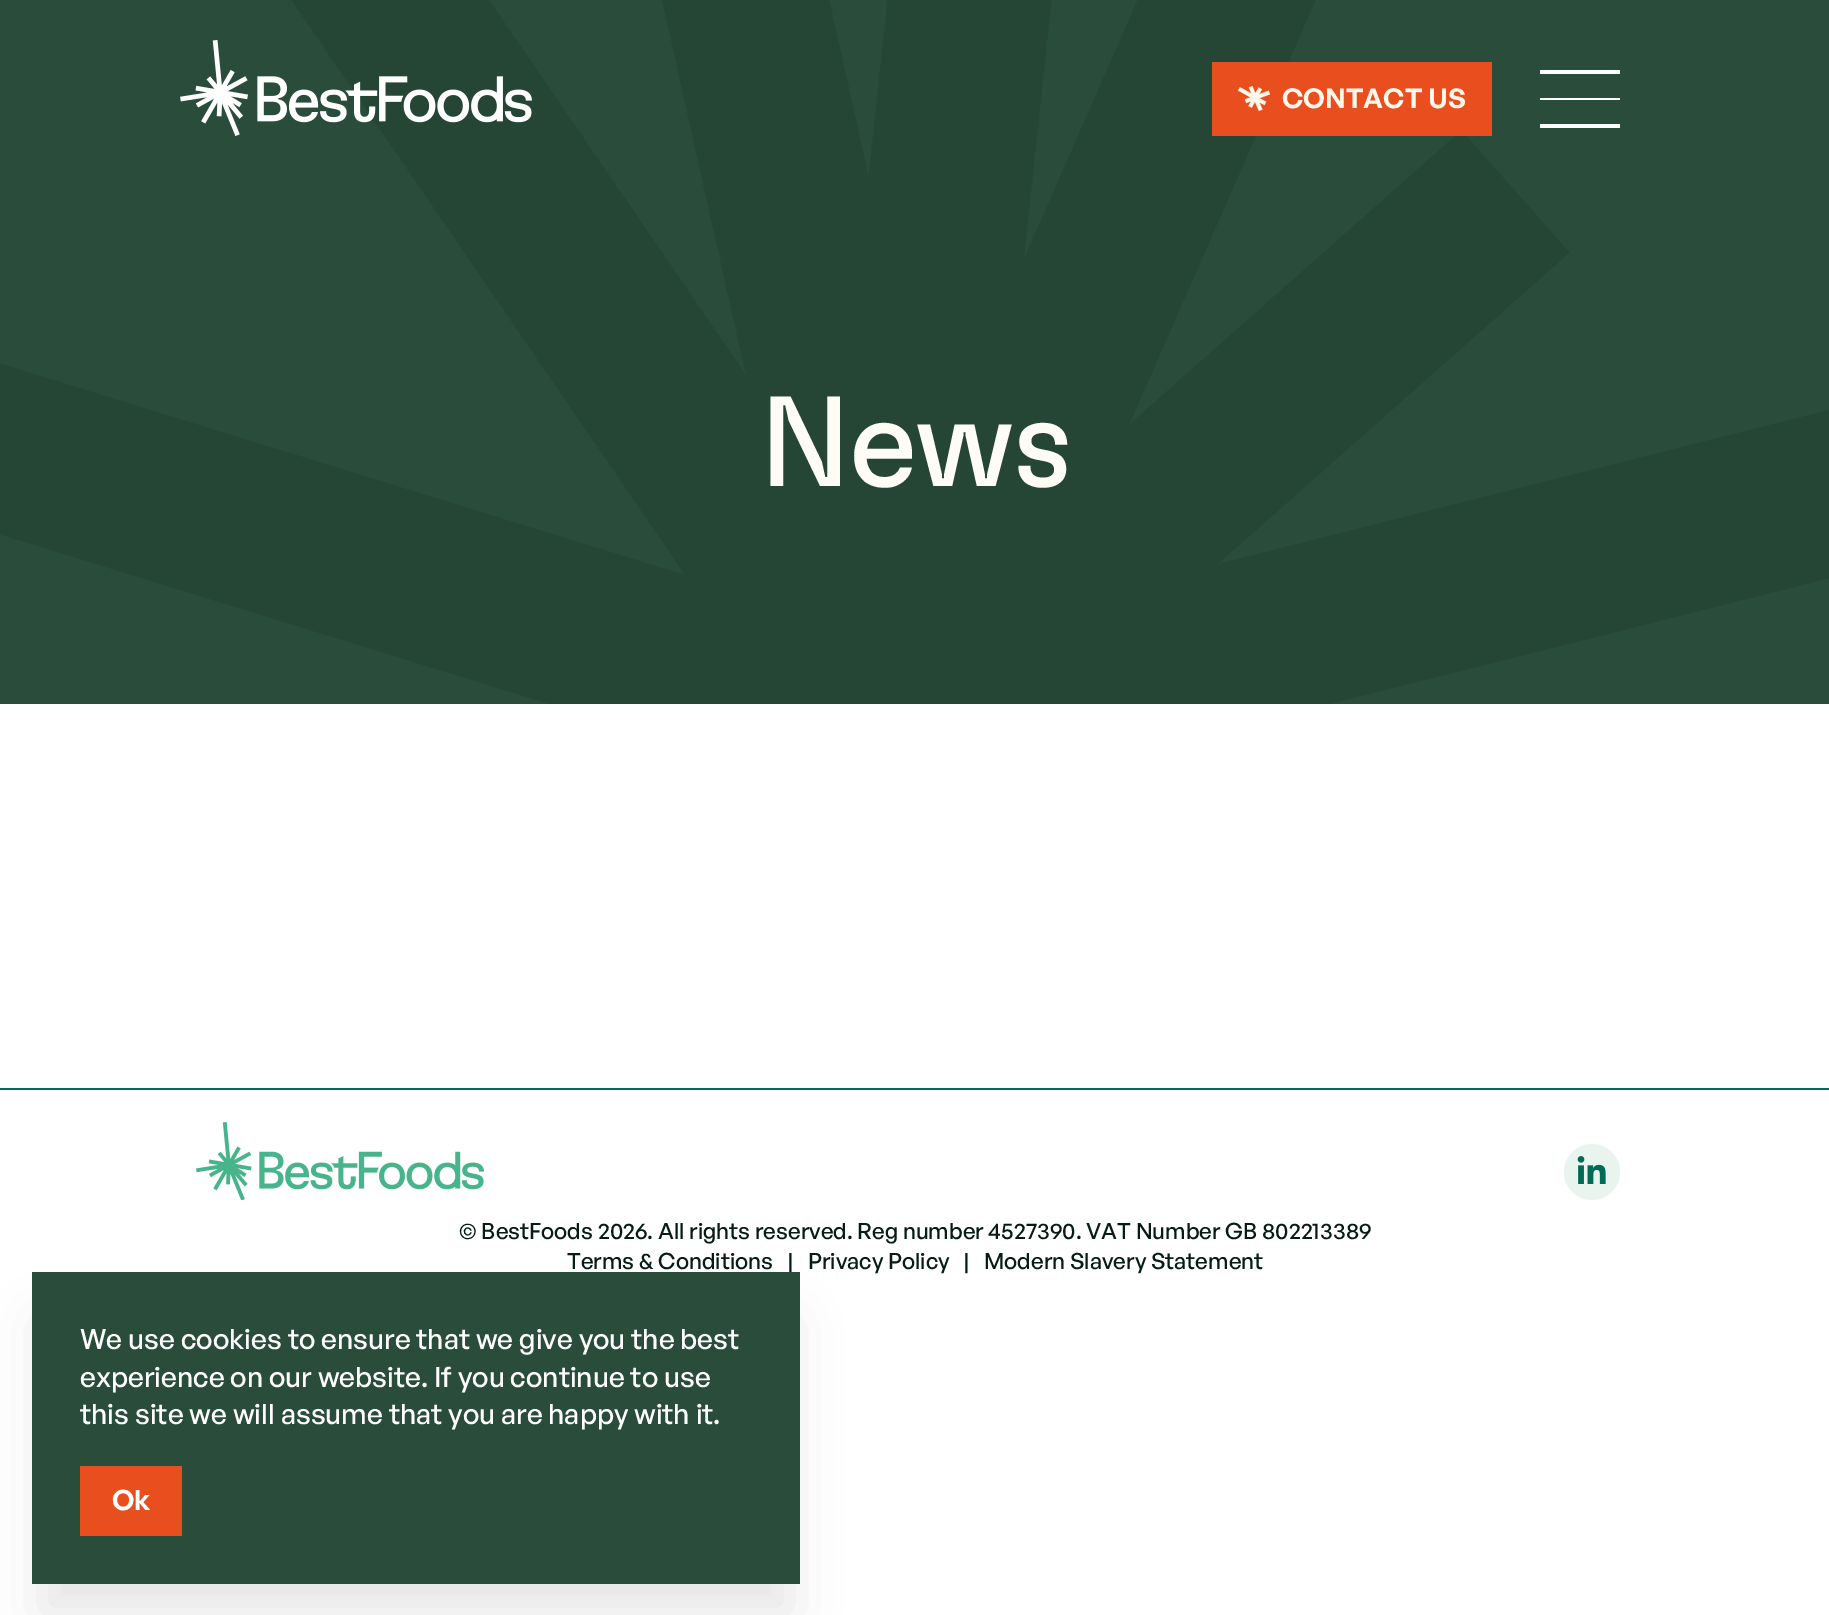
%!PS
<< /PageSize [1829 1615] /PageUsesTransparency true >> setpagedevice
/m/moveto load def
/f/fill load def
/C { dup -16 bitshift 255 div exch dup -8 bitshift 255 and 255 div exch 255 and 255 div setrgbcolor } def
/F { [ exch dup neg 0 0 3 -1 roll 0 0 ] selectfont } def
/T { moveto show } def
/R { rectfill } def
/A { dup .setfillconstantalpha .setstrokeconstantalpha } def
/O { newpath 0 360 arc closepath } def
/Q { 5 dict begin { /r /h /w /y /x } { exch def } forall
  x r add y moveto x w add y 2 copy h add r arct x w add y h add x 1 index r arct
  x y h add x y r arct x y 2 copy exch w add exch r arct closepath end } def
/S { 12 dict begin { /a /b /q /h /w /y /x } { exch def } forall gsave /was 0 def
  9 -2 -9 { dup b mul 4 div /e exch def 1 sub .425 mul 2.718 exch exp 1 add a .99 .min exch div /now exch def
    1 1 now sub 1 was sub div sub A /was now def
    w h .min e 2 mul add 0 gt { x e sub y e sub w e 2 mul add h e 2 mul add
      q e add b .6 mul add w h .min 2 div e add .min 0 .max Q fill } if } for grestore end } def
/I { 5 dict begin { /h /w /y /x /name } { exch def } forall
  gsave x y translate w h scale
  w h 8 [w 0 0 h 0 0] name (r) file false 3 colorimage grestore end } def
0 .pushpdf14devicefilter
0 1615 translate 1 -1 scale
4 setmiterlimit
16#FFFFFF C
0 0 1829 1615 R
16#2A4C3B C
0 0 1829 704 R
(3.rgb) 0 0 1829 704 I
(1.rgb) 180 40 352 96 I
16#E94E1F C
1212 62 280 74 R
(2.rgb) 1238 86 32 25 I
/GeneralSans-SemiBold 27.25 F
16#FFF7EA C
(CONTACT US) 1282 108 T
16#FFFFFF C
1540 70 80 4 R
1540 98 80 2 R
1540 124 80 4 R
/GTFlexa-Regular 128 F
16#FFFBF5 C
759 486 m -3 0 (News) ashow
16#006B57 C
0 1088 1829 2 R
(4.rgb) 196 1122 288 78 I
16#E9F4EF C
1592 1172 28 O f
(5.rgb) 1577 1156 29 28 I
/GeneralSans-Medium 22.4 F
16#071C16 C
(© BestFoods 2026. All rights reserved. Reg number 4527390. VAT Number GB 802213389) 459 1239 T
(Terms & Conditions) 567 1269 T
(|) 787 1269 T
(Privacy Policy) 808 1269 T
(|) 963 1269 T
(Modern Slavery Statement) 984 1269 T
16#000000 C
42 1322 748 292 0 25 .1 S
16#2A4C3B C
32 1272 768 312 R
/GeneralSans-Medium 28 F
16#FFFFFF C
(We use cookies to ensure that we give you the best) 80 1349 T
(experience on our website. If you continue to use) 80 1387 T
(this site we will assume that you are happy with it.) 80 1424 T
16#E94E1F C
80 1466 102 70 R
/GeneralSans-SemiBold 28 F
16#FFFFFF C
(Ok) 112 1510 T
.poppdf14devicefilter showpage
